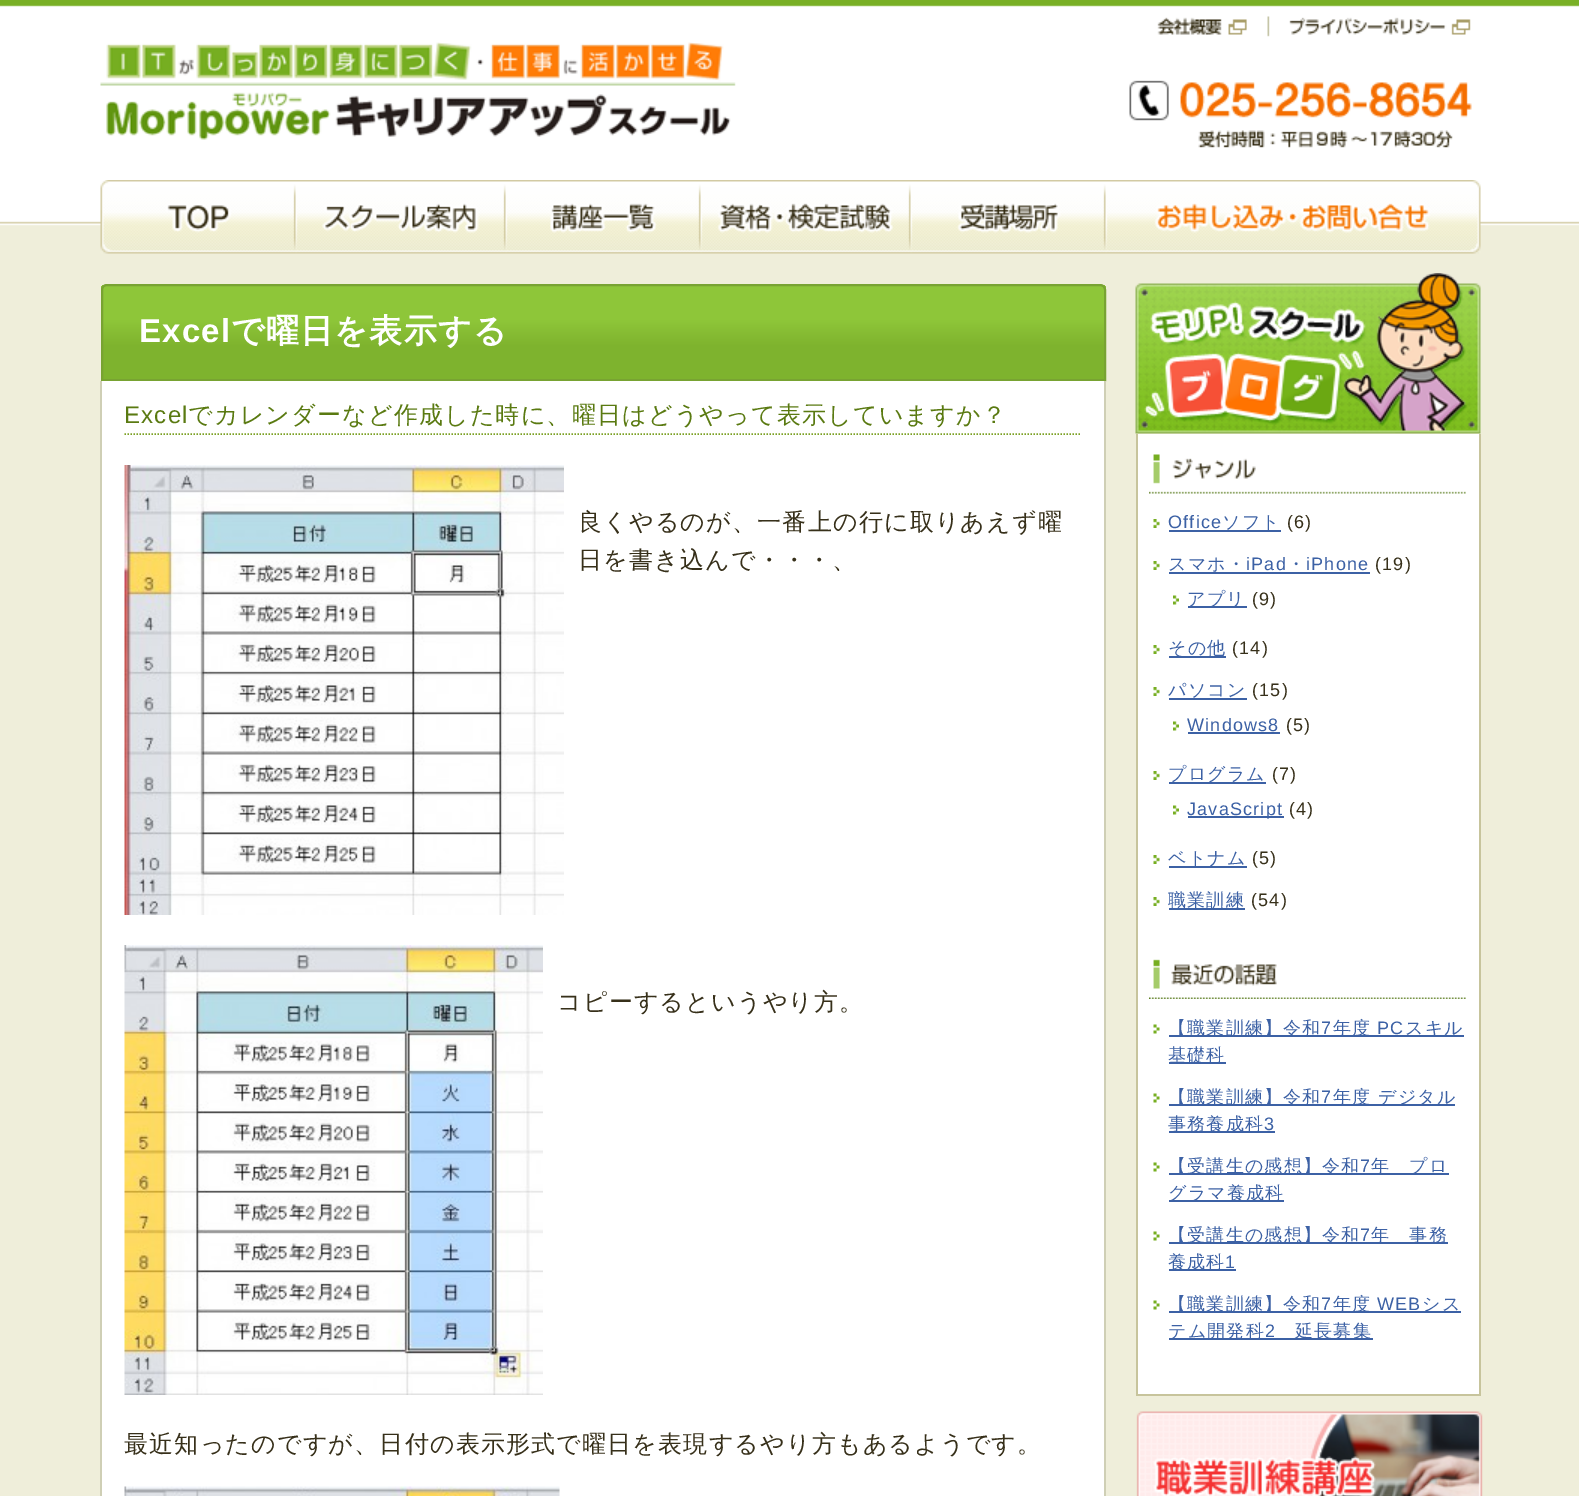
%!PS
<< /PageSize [1579 1496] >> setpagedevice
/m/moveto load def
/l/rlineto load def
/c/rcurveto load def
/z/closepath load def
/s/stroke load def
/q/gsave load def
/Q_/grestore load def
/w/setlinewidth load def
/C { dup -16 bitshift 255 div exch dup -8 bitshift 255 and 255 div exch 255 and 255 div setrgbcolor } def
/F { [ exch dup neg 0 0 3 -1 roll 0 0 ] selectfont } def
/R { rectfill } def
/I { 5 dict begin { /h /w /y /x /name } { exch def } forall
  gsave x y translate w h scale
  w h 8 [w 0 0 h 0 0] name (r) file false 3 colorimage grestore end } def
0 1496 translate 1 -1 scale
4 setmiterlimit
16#EFEEDA C
0 0 1579 1496 R
(1.rgb) 0 0 1579 226 I
(2.rgb) 1157 16 314 21 I
(3.rgb) 100 42 636 98 I
(4.rgb) 1129 80 343 68 I
(5.rgb) 100 180 1381 74 I
q
107 284 m 993 0 l 3.5 0 6 2.5 6 6 c 0 91 l -1005 0 l 0 -91 l 0 -3.5 2.5 -6 6 -6 c z clip newpath
q 101 285 m 1005 0 l 0 94 l -1005 0 l z clip newpath
<< /ShadingType 2 /ColorSpace /DeviceRGB /Coords [603 285 603 380] /Extend [true true] /Function << /FunctionType 3 /Domain [0 1] /Functions [<< /FunctionType 2 /Domain [0 1] /C0 [.557 .776 .224] /C1 [.557 .776 .224] /N 1 >> << /FunctionType 2 /Domain [0 1] /C0 [.557 .776 .224] /C1 [.494 .702 .18] /N 1 >> << /FunctionType 2 /Domain [0 1] /C0 [.494 .702 .18] /C1 [.494 .702 .18] /N 1 >>] /Bounds [.37 .65] /Encode [0 1 0 1 0 1] >> >> shfill Q_
Q_
16#78A332 C
2 w
107 285 m 993 0 l 3 0 5 2 5 5 c 0 90 l -1003 0 l 0 -90 l 0 -3 2 -5 5 -5 c z s
/LiberationSans-Bold 33 F
16#FFFFFF C
139 342 m 1.2 0 (Excel) ashow
/WenQuanYiZenHei-Bold 33 F
231 342 m 1.2 0 (で曜日を表示する) ashow
102 381 1002 1115 R
16#CFCFB5 C
100 381 m 1006 0 l 0 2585 l 0 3 -3 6 -6 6 c -994 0 l -3 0 -6 -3 -6 -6 c z 102 381 m 1002 0 l 0 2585 l 0 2 -2 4 -4 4 c -994 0 l -2 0 -4 -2 -4 -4 c z eofill
16#7BA123 C
1.5 w
[1.5 1.5] 0 setdash
124.5 434 m 957 0 l s
/LiberationSans-Regular 24 F
16#5A7A11 C
124 423 m 1.2 0 (Excel) ashow
/WenQuanYiZenHei-Medium 24 F
188 423 m 1.2 0 (でカレンダーなど作成した時に、曜日はどうやって表示していますか？) ashow
(6.rgb) 124 465 440 450 I
16#37301A C
578 530 m 1.2 0 (良くやるのが、一番上の行に取りあえず曜) ashow
578 568 m 1.2 0 (日を書き込んで・・・、) ashow
(7.rgb) 124 945 419 450 I
557 1010 m 1.2 0 (コピーするというやり方。) ashow
124 1452 m 1.2 0 (最近知ったのですが、日付の表示形式で曜日を表現するやり方もあるようです。) ashow
(8.rgb) 124 1486 436 10 I
(9.rgb) 1135 273 346 161 I
16#FFFFFF C
1138 434 341 960 R
16#C7C49C C
1479 434 2 961 R
1136 1394 345 2 R
1136 434 2 961 R
(10.rgb) 1149 454 317 40 I
(11.rgb) 1153 519 7 9 I
/LiberationSans-Regular 18 F
16#3C61A5 C
1168 528 m 1.2 0 (Office) ashow
1169 530 112 2 R
/WenQuanYiZenHei-Medium 18 F
1222 528 m 1.2 0 (ソフト) ashow
/LiberationSans-Regular 18 F
16#37301A C
1287 528 m 1.2 0 (\(6\)) ashow
(11.rgb) 1153 561 7 9 I
/WenQuanYiZenHei-Medium 18 F
16#3C61A5 C
1168 570 m 1.2 0 (スマホ・) ashow
1169 572 201 2 R
/LiberationSans-Regular 18 F
1246 570 m 1.2 0 (iPad) ashow
/WenQuanYiZenHei-Medium 18 F
1287 570 m 1.2 0 (・) ashow
/LiberationSans-Regular 18 F
1306 570 m 1.2 0 (iPhone) ashow
16#37301A C
1375 570 m 1.2 0 (\(19\)) ashow
(12.rgb) 1173 595 6 10 I
16#3C61A5 C
1188 606 59 2 R
/WenQuanYiZenHei-Medium 18 F
1187 605 m 1.2 0 (アプリ) ashow
/LiberationSans-Regular 18 F
16#37301A C
1252 605 m 1.2 0 (\(9\)) ashow
(11.rgb) 1153 645 7 9 I
16#3C61A5 C
1169 656 57 2 R
/WenQuanYiZenHei-Medium 18 F
1168 654 m 1.2 0 (その他) ashow
/LiberationSans-Regular 18 F
16#37301A C
1232 654 m 1.2 0 (\(14\)) ashow
(11.rgb) 1153 687 7 9 I
/WenQuanYiZenHei-Medium 18 F
16#3C61A5 C
1168 696 m 1.2 0 (パソコン) ashow
1169 698 78 2 R
/LiberationSans-Regular 18 F
16#37301A C
1252 696 m 1.2 0 (\(15\)) ashow
(12.rgb) 1173 721 6 10 I
16#3C61A5 C
1187 731 m 1.2 0 (Windows8) ashow
1188 732 92 2 R
16#37301A C
1286 731 m 1.2 0 (\(5\)) ashow
(11.rgb) 1153 771 7 9 I
16#3C61A5 C
1169 782 97 2 R
/WenQuanYiZenHei-Medium 18 F
1168 780 m 1.2 0 (プログラム) ashow
/LiberationSans-Regular 18 F
16#37301A C
1272 780 m 1.2 0 (\(7\)) ashow
(12.rgb) 1173 805 6 10 I
16#3C61A5 C
1188 816 96 2 R
1187 815 m 1.2 0 (JavaScript) ashow
16#37301A C
1289 815 m 1.2 0 (\(4\)) ashow
(11.rgb) 1153 855 7 9 I
16#3C61A5 C
1169 866 78 2 R
/WenQuanYiZenHei-Medium 18 F
1168 864 m 1.2 0 (ベトナム) ashow
/LiberationSans-Regular 18 F
16#37301A C
1252 864 m 1.2 0 (\(5\)) ashow
(11.rgb) 1153 897 7 9 I
16#3C61A5 C
1169 908 76 2 R
/WenQuanYiZenHei-Medium 18 F
1168 906 m 1.2 0 (職業訓練) ashow
/LiberationSans-Regular 18 F
16#37301A C
1251 906 m 1.2 0 (\(54\)) ashow
(13.rgb) 1149 959 317 40 I
(14.rgb) 1153 1024 7 10 I
16#3C61A5 C
1169 1035 295 2 R
/WenQuanYiZenHei-Medium 18 F
1168 1034 m 1.2 0 (【職業訓練】令和) ashow
/LiberationSans-Regular 18 F
1321 1034 m 1.2 0 (7) ashow
/WenQuanYiZenHei-Medium 18 F
1333 1034 m 1.2 0 (年度) ashow
/LiberationSans-Regular 18 F
1377 1034 m 1.2 0 (PC) ashow
/WenQuanYiZenHei-Medium 18 F
1405 1034 m 1.2 0 (スキル) ashow
1169 1062 57 2 R
1168 1061 m 1.2 0 (基礎科) ashow
(14.rgb) 1153 1093 7 10 I
1169 1104 286 2 R
1168 1103 m 1.2 0 (【職業訓練】令和) ashow
/LiberationSans-Regular 18 F
1321 1103 m 1.2 0 (7) ashow
/WenQuanYiZenHei-Medium 18 F
1333 1103 m 1.2 0 (年度 デジタル) ashow
1169 1131 106 2 R
1168 1130 m 1.2 0 (事務養成科) ashow
/LiberationSans-Regular 18 F
1264 1130 m 1.2 0 (3) ashow
(14.rgb) 1153 1162 7 10 I
1169 1173 280 2 R
/WenQuanYiZenHei-Medium 18 F
1168 1172 m 1.2 0 (【受講生の感想】令和) ashow
/LiberationSans-Regular 18 F
1360 1172 m 1.2 0 (7) ashow
/WenQuanYiZenHei-Medium 18 F
1371 1172 m 1.2 0 (年　プロ) ashow
1169 1200 115 2 R
1168 1199 m 1.2 0 (グラマ養成科) ashow
(14.rgb) 1153 1231 7 10 I
1169 1242 279 2 R
1168 1241 m 1.2 0 (【受講生の感想】令和) ashow
/LiberationSans-Regular 18 F
1360 1241 m 1.2 0 (7) ashow
/WenQuanYiZenHei-Medium 18 F
1371 1241 m 1.2 0 (年　事務) ashow
1169 1269 67 2 R
1168 1268 m 1.2 0 (養成科) ashow
/LiberationSans-Regular 18 F
1225 1268 m 1.2 0 (1) ashow
(14.rgb) 1153 1300 7 10 I
1169 1311 292 2 R
/WenQuanYiZenHei-Medium 18 F
1168 1310 m 1.2 0 (【職業訓練】令和) ashow
/LiberationSans-Regular 18 F
1321 1310 m 1.2 0 (7) ashow
/WenQuanYiZenHei-Medium 18 F
1333 1310 m 1.2 0 (年度) ashow
/LiberationSans-Regular 18 F
1377 1310 m 1.2 0 (WEB) ashow
/WenQuanYiZenHei-Medium 18 F
1422 1310 m 1.2 0 (シス) ashow
1169 1338 204 2 R
1168 1337 m 1.2 0 (テム開発科) ashow
/LiberationSans-Regular 18 F
1265 1337 m 1.2 0 (2) ashow
/WenQuanYiZenHei-Medium 18 F
1295 1337 m 1.2 0 (延長募集) ashow
(15.rgb) 1136 1411 347 85 I
showpage
